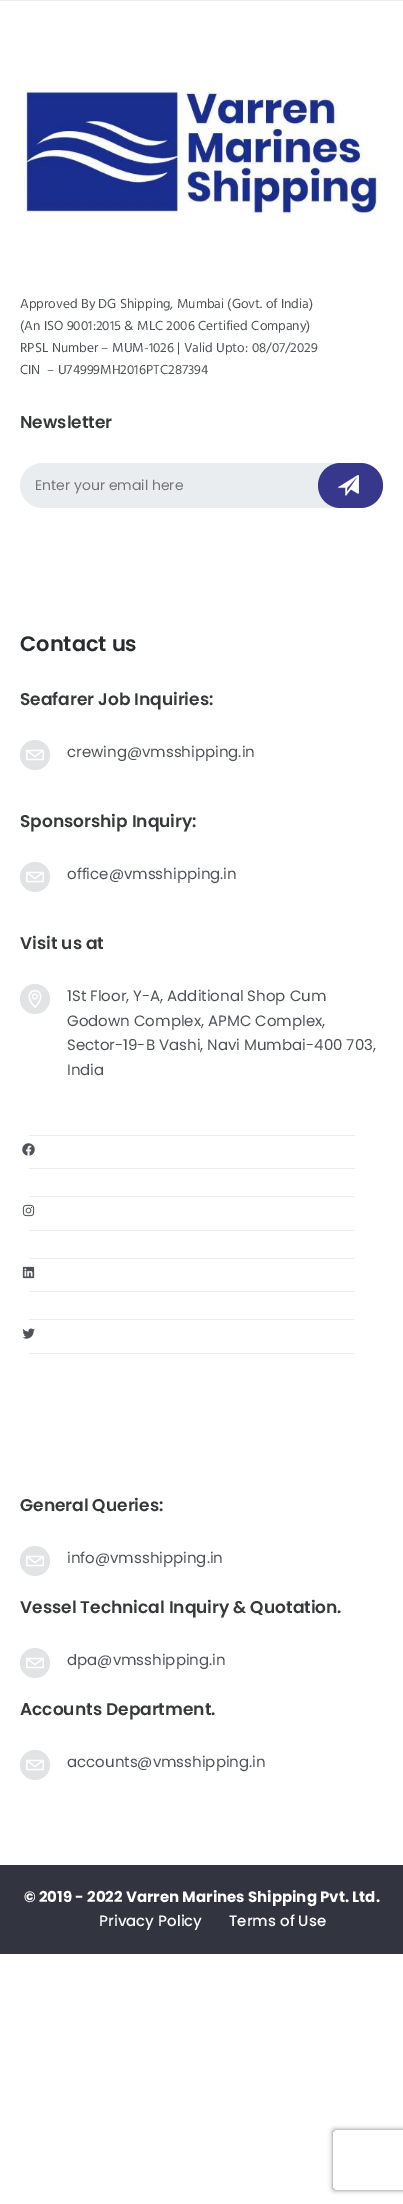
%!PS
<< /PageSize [403 2204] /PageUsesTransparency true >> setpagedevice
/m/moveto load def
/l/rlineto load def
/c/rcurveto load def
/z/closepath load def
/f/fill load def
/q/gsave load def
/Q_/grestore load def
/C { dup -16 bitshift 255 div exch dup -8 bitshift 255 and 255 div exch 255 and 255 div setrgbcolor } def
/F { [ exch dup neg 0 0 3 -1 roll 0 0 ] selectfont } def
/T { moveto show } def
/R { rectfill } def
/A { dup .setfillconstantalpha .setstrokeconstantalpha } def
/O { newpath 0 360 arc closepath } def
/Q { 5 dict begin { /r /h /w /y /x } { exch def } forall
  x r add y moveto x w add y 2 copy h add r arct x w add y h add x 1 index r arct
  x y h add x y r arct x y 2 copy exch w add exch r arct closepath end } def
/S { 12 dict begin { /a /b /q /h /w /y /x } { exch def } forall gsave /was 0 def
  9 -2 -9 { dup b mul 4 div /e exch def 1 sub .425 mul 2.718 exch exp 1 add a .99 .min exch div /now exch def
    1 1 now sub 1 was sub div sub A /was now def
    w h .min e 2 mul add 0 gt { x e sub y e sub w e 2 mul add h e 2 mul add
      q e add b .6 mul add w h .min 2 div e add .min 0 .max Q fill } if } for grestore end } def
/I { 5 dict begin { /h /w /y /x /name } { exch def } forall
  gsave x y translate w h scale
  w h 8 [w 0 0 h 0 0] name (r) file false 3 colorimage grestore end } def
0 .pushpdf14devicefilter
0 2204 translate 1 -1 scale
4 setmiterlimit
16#FFFFFF C
0 0 403 2204 R
16#EAEDEF C
0 0 403 1 R
(1.rgb) 20 86 360 129 I
/HindMadurai-Regular 13.5 F
16#4F5258 C
(Approved By DG Shipping, Mumbai \(Govt. of India\)) 20 308 T
(\(An ISO 9001:2015 & MLC 2006 Certified Company\)) 20 330 T
(RPSL Number – MUM-1026 | Valid Upto: 08/07/2029) 20 352 T
(CIN  – U74999MH2016PTC287394) 20 374 T
/Poppins-SemiBold 17 F
16#36383A C
(Newsletter) 20 428 T
16#EAEDEF C
20 463 363 45 22.5 Q f
/Poppins-Regular 14 F
16#757575 C
(Enter your email here) 35 490 T
16#37378C C
318 463 65 45 22.5 Q f
(2.rgb) 338 475 21 21 I
/Poppins-SemiBold 21 F
16#292C2F C
(Contact us) 20 651 T
/Poppins-SemiBold 17 F
16#36383A C
(Seafarer Job Inquiries:) 20 705 T
16#E2E3E4 C
35 755 15 O f
(3.rgb) 26 749 18 12 I
/Poppins-Regular 15 F
16#4F5258 C
(crewing@vmsshipping.in) 67 757 T
/Poppins-SemiBold 17 F
16#36383A C
(Sponsorship Inquiry:) 20 827 T
16#E2E3E4 C
35 877 15 O f
(3.rgb) 26 871 18 12 I
/Poppins-Regular 15 F
16#4F5258 C
(office@vmsshipping.in) 67 879 T
/Poppins-SemiBold 17 F
16#36383A C
(Visit us at) 20 949 T
16#E2E3E4 C
35 999 15 O f
(4.rgb) 28 990 14 18 I
/Poppins-Regular 15 F
16#4F5258 C
(1St Floor, Y-A, Additional Shop Cum) 67 1001 T
(Godown Complex, APMC Complex,) 67 1026 T
(Sector-19-B Vashi, Navi Mumbai-400 703,) 67 1050 T
(India) 67 1075 T
16#EAEDEF C
29 1135 326 1 R
29 1168 326 1 R
(5.rgb) 22 1143 13 13 I
29 1196 325 1 R
29 1230 325 1 R
(6.rgb) 22 1204 13 13 I
29 1258 326 1 R
29 1291 326 1 R
(7.rgb) 22 1266 13 13 I
29 1319 325 1 R
29 1353 325 1 R
(8.rgb) 22 1328 13 11 I
/Poppins-SemiBold 17 F
16#36383A C
(General Queries:) 20 1511 T
16#E2E3E4 C
35 1561 15 O f
(3.rgb) 26 1555 18 12 I
/Poppins-Regular 15 F
16#4F5258 C
(info@vmsshipping.in) 67 1563 T
/Poppins-SemiBold 17 F
16#36383A C
(Vessel Technical Inquiry & Quotation.) 20 1613 T
16#E2E3E4 C
35 1663 15 O f
(3.rgb) 26 1657 18 12 I
/Poppins-Regular 15 F
16#4F5258 C
(dpa@vmsshipping.in) 67 1665 T
/Poppins-SemiBold 17 F
16#36383A C
(Accounts Department.) 20 1715 T
16#E2E3E4 C
35 1765 15 O f
(3.rgb) 26 1759 18 12 I
/Poppins-Regular 15 F
16#4F5258 C
(accounts@vmsshipping.in) 67 1767 T
16#32343F C
0 1865 403 89 R
/Poppins-Bold 15 F
16#FFFFFF C
(© 2019 - 2022 Varren Marines Shipping Pvt. Ltd.) 24 1902 T
/Poppins-Medium 15 F
(Privacy Policy) 99 1926 T
(Terms of Use) 229 1926 T
q
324 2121 m 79 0 l 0 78 l -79 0 l z 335 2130 m 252 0 l 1 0 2 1 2 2 c 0 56 l 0 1 -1 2 -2 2 c -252 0 l -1 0 -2 -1 -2 -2 c 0 -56 l 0 -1 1 -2 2 -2 c z eoclip newpath
16#808080 C
333 2130 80 60 2 2.5 1 S
Q_
.poppdf14devicefilter showpage
